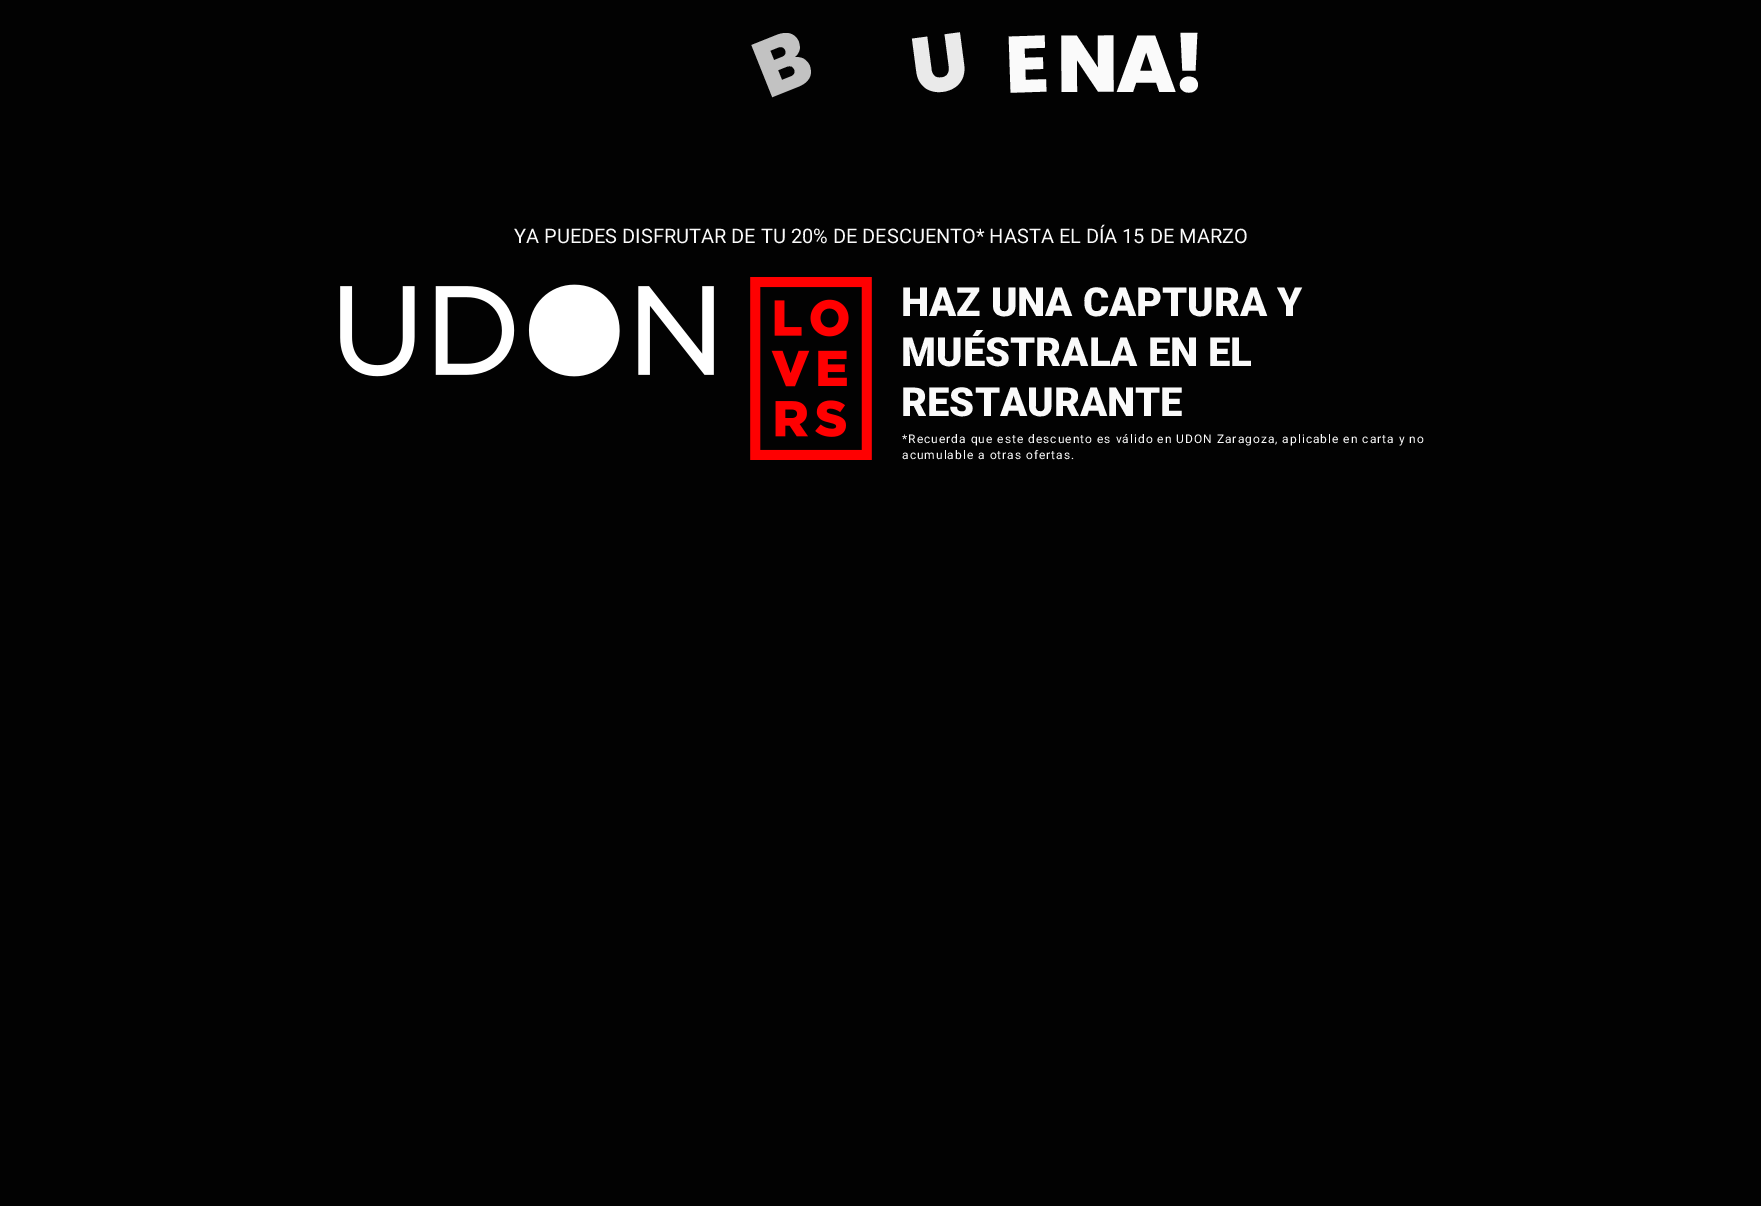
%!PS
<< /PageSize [1761 1206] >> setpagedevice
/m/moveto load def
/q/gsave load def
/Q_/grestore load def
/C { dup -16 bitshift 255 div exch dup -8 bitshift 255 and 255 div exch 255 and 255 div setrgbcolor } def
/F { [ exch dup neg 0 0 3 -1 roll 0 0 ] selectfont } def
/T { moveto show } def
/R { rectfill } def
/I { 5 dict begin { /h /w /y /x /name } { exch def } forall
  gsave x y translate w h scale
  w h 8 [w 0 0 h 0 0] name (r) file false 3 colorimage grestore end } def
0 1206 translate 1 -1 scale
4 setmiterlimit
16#020202 C
0 0 1761 1206 R
/Poppins-ExtraBold 80 F
16#C2C2C2 C
q 768 99 translate -21.8 rotate 0 0 m -4 0 (B) ashow Q_
16#EAEAEA C
q 915 95 translate -7.5 rotate 0 0 m -4 0 (U) ashow Q_
16#FAFAFA C
q 1006 93 translate -1.9 rotate 0 0 m -4 0 (E) ashow Q_
q 1057 92 translate -.3 rotate 0 0 m -4 0 (N) ashow Q_
1116 92 m -4 0 (A!) ashow
/Roboto-Regular 20 F
(YA PUEDES DISFRUTAR DE TU 20% DE DESCUENTO* HASTA EL DÍA 15 DE MARZO) 514 243 T
(1.rgb) 340 277 532 183 I
/Roboto-Black 40 F
(HAZ UNA CAPTURA Y) 901 316 T
(MUÉSTRALA EN EL) 901 366 T
(RESTAURANTE) 901 416 T
/Roboto-Regular 12 F
902 443 m 1 0 (*Recuerda que este descuento es válido en UDON Zaragoza, aplicable en carta y no) ashow
902 459 m 1 0 (acumulable a otras ofertas.) ashow
showpage
